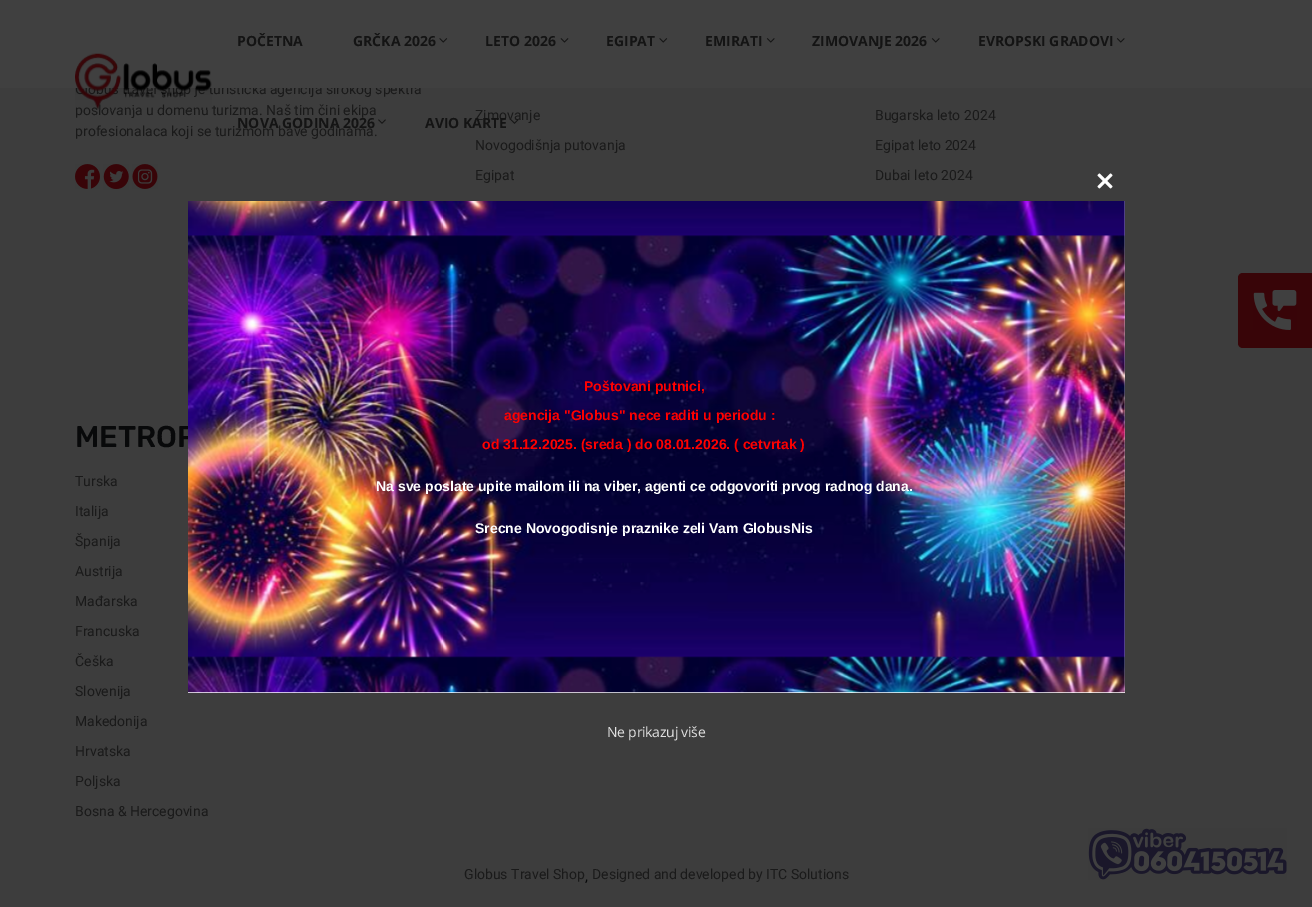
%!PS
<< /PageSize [1312 907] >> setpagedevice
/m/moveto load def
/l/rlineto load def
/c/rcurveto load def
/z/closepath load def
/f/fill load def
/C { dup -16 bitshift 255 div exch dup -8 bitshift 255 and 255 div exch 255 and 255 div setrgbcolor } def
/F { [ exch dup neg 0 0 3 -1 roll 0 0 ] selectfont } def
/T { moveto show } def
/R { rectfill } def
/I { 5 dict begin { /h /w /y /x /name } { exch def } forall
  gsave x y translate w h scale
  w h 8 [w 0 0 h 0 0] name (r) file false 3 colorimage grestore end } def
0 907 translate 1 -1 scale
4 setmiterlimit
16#3D3D3D C
0 0 1312 907 R
/Roboto-Regular 14 F
16#1A1A1A C
(Globus travel shop je turistička agencija širokog spektra) 75 94 T
16#404040 C
0 0 1312 88 R
16#1A1A1A C
(poslovanja u domenu turizma. Naš tim čini ekipa) 75 115 T
(1.rgb) 75 53 137 57 I
/OpenSans-Bold 14 F
16#141414 C
(POČETNA) 237 46 T
(GRČKA 2026) 353 46 T
(2.rgb) 439 38 9 5 I
(LETO 2026) 485 46 T
(3.rgb) 560 38 9 5 I
(EGIPAT) 606 46 T
(2.rgb) 659 38 9 5 I
(EMIRATI) 705 46 T
(4.rgb) 766 38 9 5 I
(ZIMOVANJE 2026) 812 46 T
(4.rgb) 931 38 9 5 I
(EVROPSKI GRADOVI) 978 46 T
(4.rgb) 1116 38 9 5 I
(NOVA GODINA 2026) 237 128 T
(5.rgb) 378 119 8 5 I
/Roboto-Regular 14 F
16#1A1A1A C
(Zimovanje) 475 120 T
/OpenSans-Bold 14 F
16#141414 C
(AVIO KARTE) 425 128 T
(6.rgb) 510 119 9 5 I
/Roboto-Regular 14 F
16#1A1A1A C
(profesionalaca koji se turizmom bave godinama.) 75 136 T
(7.rgb) 75 164 25 25 I
(8.rgb) 103 164 26 26 I
(9.rgb) 132 164 26 25 I
(Novogodišnja putovanja) 475 150 T
(Egipat) 475 180 T
(Bugarska leto 2024) 875 120 T
(Egipat leto 2024) 875 150 T
(Dubai leto 2024) 875 180 T
/Rubik-Medium 30 F
16#08090A C
(METROP) 75 447 T
/Roboto-Regular 14 F
16#1A1A1A C
(Turska) 75 486 T
(Italija) 75 516 T
(Španija) 75 546 T
(Austrija) 75 576 T
(Mađarska) 75 606 T
(Francuska) 75 636 T
(Češka) 75 666 T
(Slovenija) 75 696 T
(Makedonija) 75 726 T
(Hrvatska) 75 756 T
(Poljska) 75 786 T
(Bosna & Hercegovina) 75 816 T
16#380508 C
1243 273 m 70 0 l 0 75 l -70 0 l -3 0 -5 -2 -5 -5 c 0 -65 l 0 -3 2 -5 5 -5 c z f
(10.rgb) 1253 290 44 40 I
16#1A1A1A C
(Globus Travel Shop) 464 879 T
/Roboto-Regular 15 F
16#08090A C
(,) 585 881 T
/Roboto-Regular 14 F
16#1A1A1A C
(Designed and developed by ITC Solutions) 592 879 T
16#FFFFFF C
188 201 937 492 R
(11.rgb) 188 201 937 492 I
(12.rgb) 1097 173 16 16 I
/LiberationSans-Bold 14 F
16#FF0000 C
(Poštovani putnici,) 584 391 T
(agencija "Globus" nece raditi u periodu :) 504 420 T
(od 31.12.2025. \(sreda \) do 08.01.2026. \( cetvrtak \)) 482 449 T
16#FFFFFF C
(Na sve poslate upite mailom ili na viber, agenti ce odgovoriti prvog radnog dana.) 376 491 T
(Srecne Novogodisnje praznike zeli Vam GlobusNis) 475 533 T
/OpenSans-Regular 14 F
16#E1E1E1 C
607 737 m -.25 0 (Ne prikazuj više) ashow
(13.rgb) 1088 828 199 52 I
showpage
